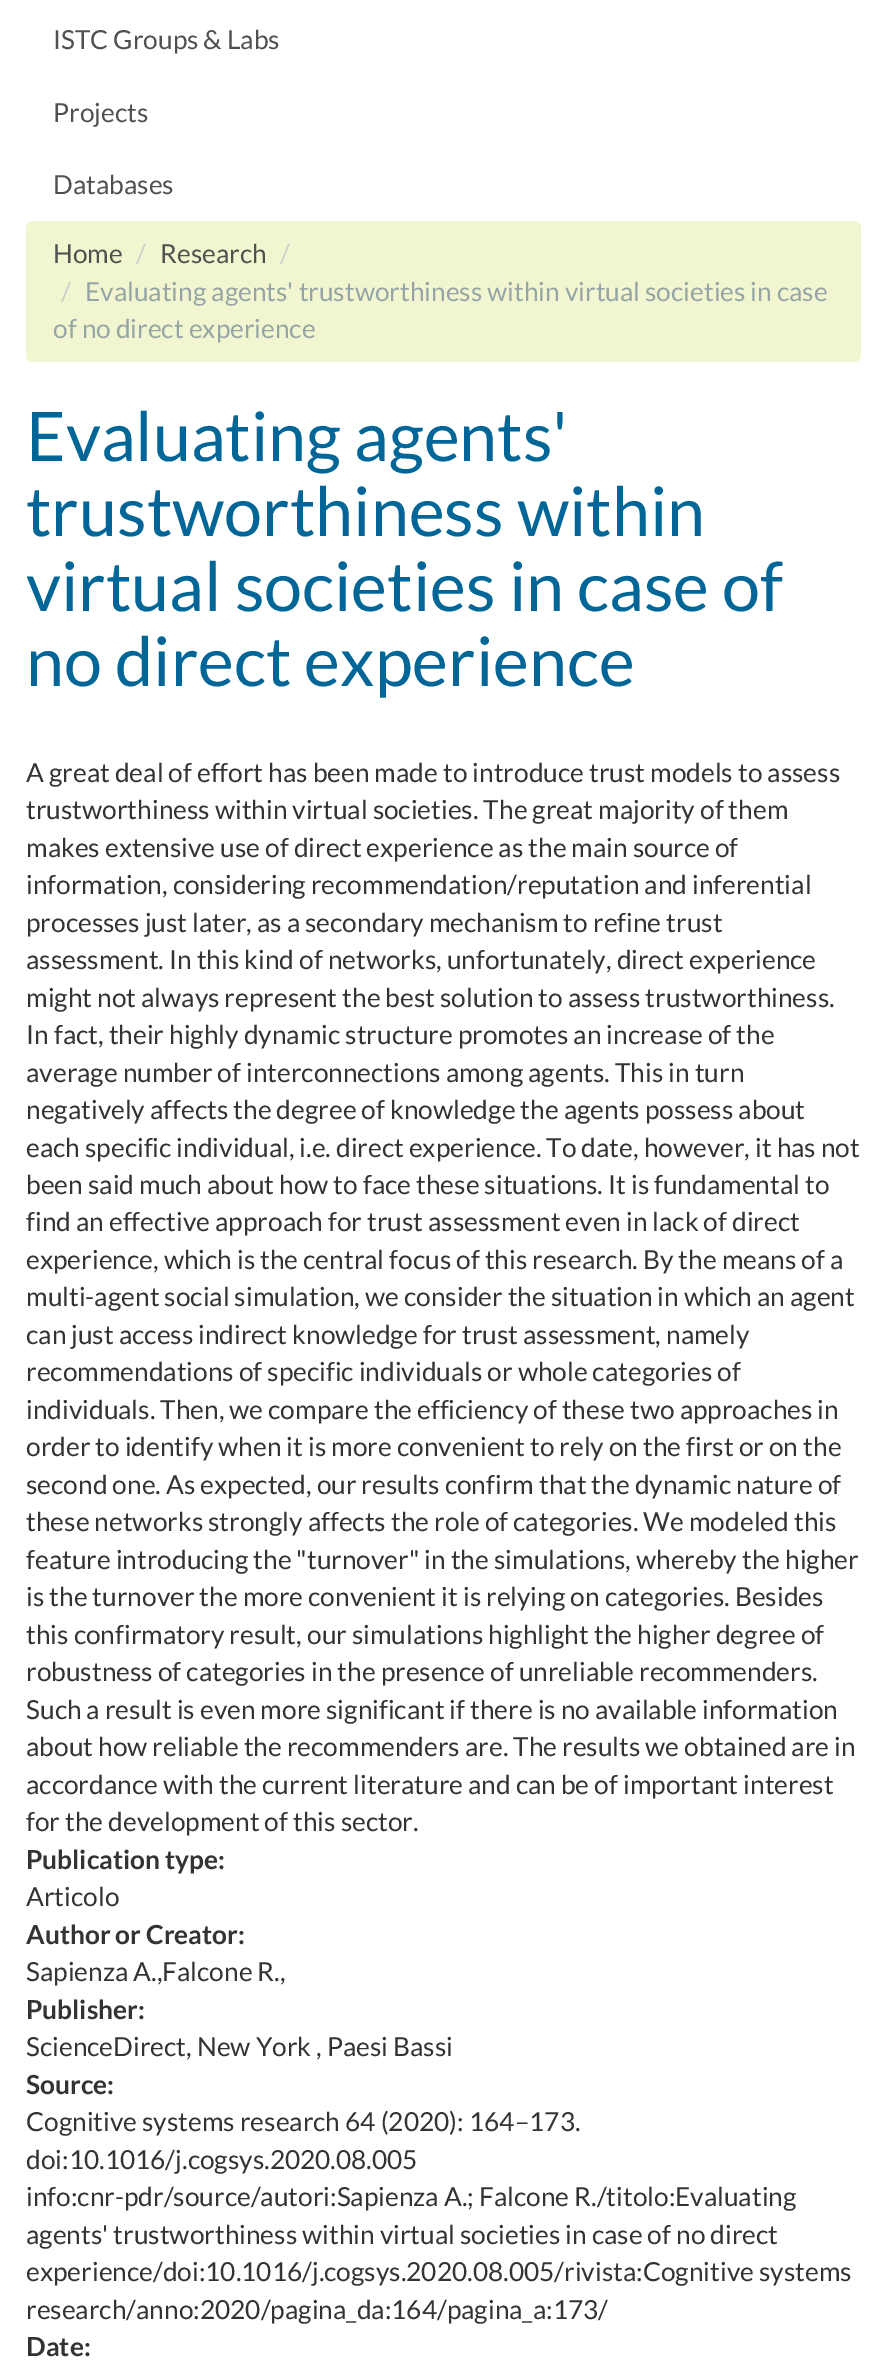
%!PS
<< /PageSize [886 2365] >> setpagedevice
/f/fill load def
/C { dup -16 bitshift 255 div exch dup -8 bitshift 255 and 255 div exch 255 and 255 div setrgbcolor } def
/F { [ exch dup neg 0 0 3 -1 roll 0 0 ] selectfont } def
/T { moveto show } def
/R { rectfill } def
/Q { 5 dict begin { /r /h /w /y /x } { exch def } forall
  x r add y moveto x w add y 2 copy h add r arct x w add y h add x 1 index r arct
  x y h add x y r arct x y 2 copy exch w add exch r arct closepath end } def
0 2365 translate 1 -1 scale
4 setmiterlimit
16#FFFFFF C
0 0 886 2365 R
/Lato-Regular 26.25 F
16#50514F C
(ISTC Groups & Labs) 53 49 T
(Projects) 53 122 T
(Databases) 53 194 T
16#F2F6D0 C
26 221 835 141 7 Q f
16#50514F C
(Home) 53 263 T
16#CCCCCC C
(/) 136 263 T
16#50514F C
(Research) 160 263 T
16#CCCCCC C
(/) 280 263 T
(/) 61 301 T
16#95A5A6 C
(Evaluating agents' trustworthiness within virtual societies in case) 85 301 T
(of no direct experience) 53 338 T
/Lato-Regular 68.25 F
16#006697 C
(Evaluating agents') 26 461 T
(trustworthiness within) 26 536 T
(virtual societies in case of) 26 611 T
(no direct experience) 26 686 T
/Lato-Regular 26.25 F
16#333333 C
(A great deal of effort has been made to introduce trust models to assess) 26 782 T
(trustworthiness within virtual societies. The great majority of them) 26 819 T
(makes extensive use of direct experience as the main source of) 26 857 T
(information, considering recommendation/reputation and inferential) 26 894 T
(processes just later, as a secondary mechanism to refine trust) 26 932 T
(assessment. In this kind of networks, unfortunately, direct experience) 26 969 T
(might not always represent the best solution to assess trustworthiness.) 26 1007 T
(In fact, their highly dynamic structure promotes an increase of the) 26 1044 T
(average number of interconnections among agents. This in turn) 26 1082 T
(negatively affects the degree of knowledge the agents possess about) 26 1119 T
(each specific individual, i.e. direct experience. To date, however, it has not) 26 1157 T
(been said much about how to face these situations. It is fundamental to) 26 1194 T
(find an effective approach for trust assessment even in lack of direct) 26 1231 T
(experience, which is the central focus of this research. By the means of a) 26 1269 T
(multi-agent social simulation, we consider the situation in which an agent) 26 1306 T
(can just access indirect knowledge for trust assessment, namely) 26 1344 T
(recommendations of specific individuals or whole categories of) 26 1381 T
(individuals. Then, we compare the efficiency of these two approaches in) 26 1419 T
(order to identify when it is more convenient to rely on the first or on the) 26 1456 T
(second one. As expected, our results confirm that the dynamic nature of) 26 1494 T
(these networks strongly affects the role of categories. We modeled this) 26 1531 T
(feature introducing the "turnover" in the simulations, whereby the higher) 26 1569 T
(is the turnover the more convenient it is relying on categories. Besides) 26 1606 T
(this confirmatory result, our simulations highlight the higher degree of) 26 1644 T
(robustness of categories in the presence of unreliable recommenders.) 26 1681 T
(Such a result is even more significant if there is no available information) 26 1719 T
(about how reliable the recommenders are. The results we obtained are in) 26 1756 T
(accordance with the current literature and can be of important interest) 26 1794 T
(for the development of this sector.) 26 1831 T
/Lato-Bold 26.25 F
(Publication type:) 26 1869 T
/Lato-Regular 26.25 F
(Articolo) 26 1906 T
/Lato-Bold 26.25 F
(Author or Creator:) 26 1944 T
/Lato-Regular 26.25 F
(Sapienza A.,Falcone R.,) 26 1981 T
/Lato-Bold 26.25 F
(Publisher:) 26 2019 T
/Lato-Regular 26.25 F
(ScienceDirect, New York , Paesi Bassi) 26 2056 T
/Lato-Bold 26.25 F
(Source:) 26 2094 T
/Lato-Regular 26.25 F
(Cognitive systems research 64 \(2020\): 164–173.) 26 2131 T
(doi:10.1016/j.cogsys.2020.08.005) 26 2169 T
(info:cnr-pdr/source/autori:Sapienza A.; Falcone R./titolo:Evaluating) 26 2206 T
(agents' trustworthiness within virtual societies in case of no direct) 26 2244 T
(experience/doi:10.1016/j.cogsys.2020.08.005/rivista:Cognitive systems) 26 2281 T
(research/anno:2020/pagina_da:164/pagina_a:173/) 26 2319 T
/Lato-Bold 26.25 F
(Date:) 26 2356 T
showpage
